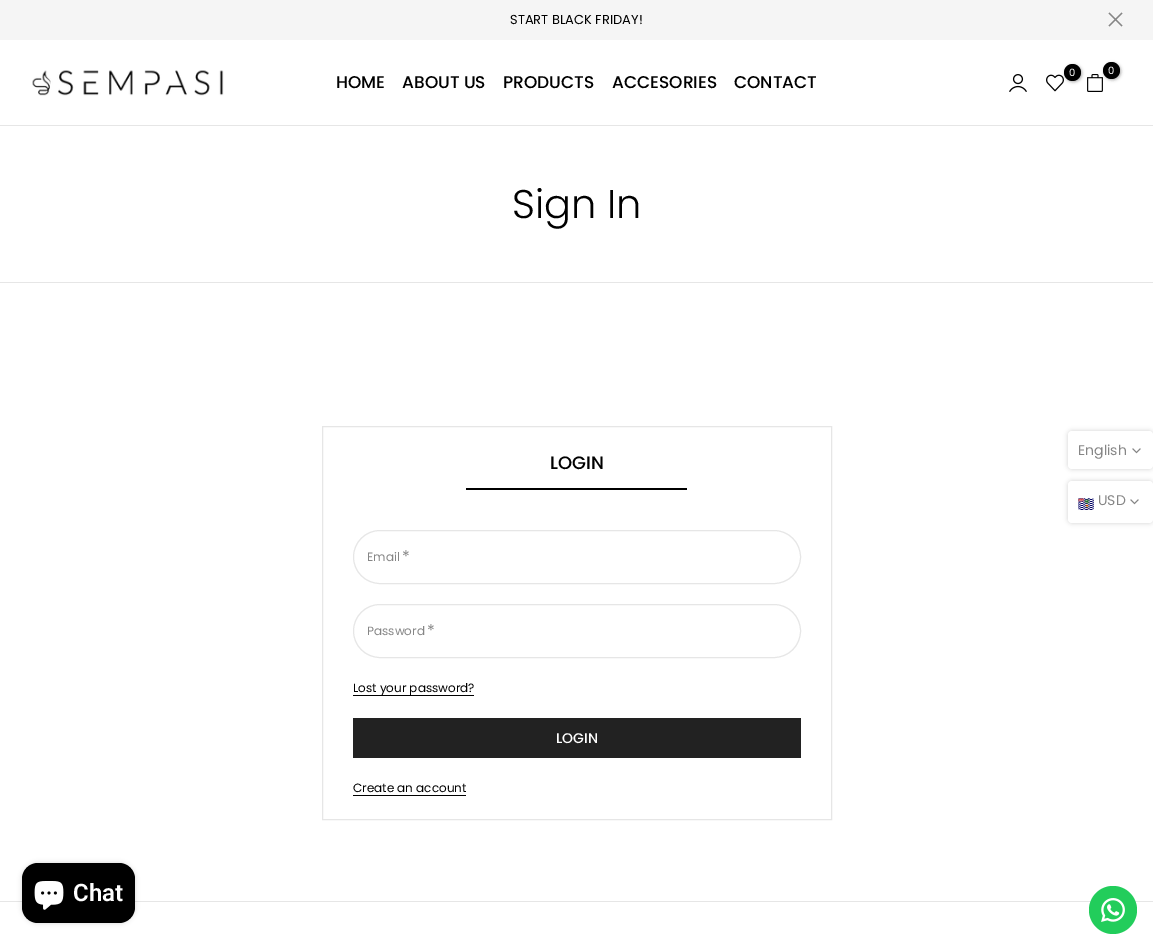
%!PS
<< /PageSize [1153 944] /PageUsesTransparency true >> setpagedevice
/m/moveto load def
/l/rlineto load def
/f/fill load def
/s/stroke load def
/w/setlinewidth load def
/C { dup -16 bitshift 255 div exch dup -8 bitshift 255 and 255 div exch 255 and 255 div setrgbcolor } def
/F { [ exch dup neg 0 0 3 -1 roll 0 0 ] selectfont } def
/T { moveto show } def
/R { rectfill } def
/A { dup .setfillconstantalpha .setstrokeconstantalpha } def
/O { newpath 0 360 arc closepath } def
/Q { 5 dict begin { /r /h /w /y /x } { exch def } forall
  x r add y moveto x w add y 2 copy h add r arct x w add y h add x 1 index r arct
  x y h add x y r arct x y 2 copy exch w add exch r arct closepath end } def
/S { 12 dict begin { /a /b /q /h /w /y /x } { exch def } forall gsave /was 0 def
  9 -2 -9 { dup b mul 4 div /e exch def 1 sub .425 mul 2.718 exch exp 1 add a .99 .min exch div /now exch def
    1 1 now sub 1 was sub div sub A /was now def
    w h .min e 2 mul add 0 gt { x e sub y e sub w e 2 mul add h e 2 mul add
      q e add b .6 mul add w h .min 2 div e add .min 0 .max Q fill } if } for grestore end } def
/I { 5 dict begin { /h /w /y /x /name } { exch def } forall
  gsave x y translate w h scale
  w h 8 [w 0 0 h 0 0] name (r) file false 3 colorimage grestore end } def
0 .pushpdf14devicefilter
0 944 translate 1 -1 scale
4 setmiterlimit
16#FFFFFF C
0 0 1153 944 R
16#F5F5F5 C
0 0 1153 40 R
/Poppins-Regular 13 F
16#000000 C
(START BLACK FRIDAY!) 510 24 T
16#868686 C
1.4 w
1122 13 m -13 13 l 1122 26 m -13 -13 l s
(1.rgb) 32 70 192 26 I
/Poppins-Medium 17 F
16#000000 C
(HOME) 336 88 T
(ABOUT US) 402 88 T
(PRODUCTS) 503 88 T
(ACCESORIES) 612 88 T
(CONTACT) 734 88 T
(2.rgb) 1046 74 18 18 I
1065 65 17 17 8.5 1.5 .3 S
1072.5 72.5 8.5 O f
/Poppins-Regular 10 F
16#FFFFFF C
(0) 1069 76 T
(3.rgb) 1087 74 16 18 I
16#000000 C
1104 63 17 17 8.5 1.5 .3 S
1111.5 70.5 8.5 O f
16#FFFFFF C
(0) 1108 74 T
(4.rgb) 1009 74 18 18 I
16#E6E6E6 C
0 125 1153 1 R
0 282 1153 1 R
/Poppins-Light 40 F
16#000000 C
(Sign In) 512 218 T
16#E6E6E6 C
1 w
322.5 426.5 509 393 rectstroke
16#000000 C
466 488 221 2 R
/Poppins-Medium 18 F
(LOGIN) 550 469 T
16#E6E6E6 C
353.5 530.5 447 53 26.5 Q s
/Poppins-Regular 12 F
16#868686 C
(Email) 367 561 T
/Poppins-Regular 16 F
(*) 402 562 T
16#E6E6E6 C
353.5 604.5 447 53 26.5 Q s
/Poppins-Regular 12 F
16#868686 C
(Password) 367 635 T
/Poppins-Regular 16 F
(*) 427 636 T
16#000000 C
353 695 121 1 R
/Poppins-Regular 12 F
(Lost your password?) 353 692 T
16#222222 C
353 718 448 40 R
/Poppins-Medium 14 F
16#FFFFFF C
(LOGIN) 556 743 T
/Poppins-Regular 12 F
16#000000 C
(Create an account) 353 792 T
353 795 113 1 R
16#E6E6E6 C
0 901 1153 1 R
16#000000 C
1068 431 85 38 4 2.5 .17 S
16#FFFFFF C
1068 431 85 38 4 Q f
/Poppins-Regular 14 F
16#868686 C
(English) 1078 455 T
.9 w
2 setlinecap
1140 449 m -3.5 3.5 l -3.5 -3.5 l s
16#000000 C
1068 481 85 42 4 2.5 .17 S
16#FFFFFF C
1068 481 85 42 4 Q f
(5.rgb) 1078 498 16 12 I
16#868686 C
(USD) 1098 505 T
1138 500 m -3.5 3.5 l -3.5 -3.5 l s
16#000000 C
22 863 113 60 16 2.5 .15 S
22 863 113 60 16 Q f
(6.rgb) 34 881 30 29 I
/Roboto-SemiBold 24 F
16#FFFFFF C
(Chat) 73 901 T
16#22CD5B C
1113 910 24 O f
(7.rgb) 1101 898 24 24 I
.poppdf14devicefilter showpage
